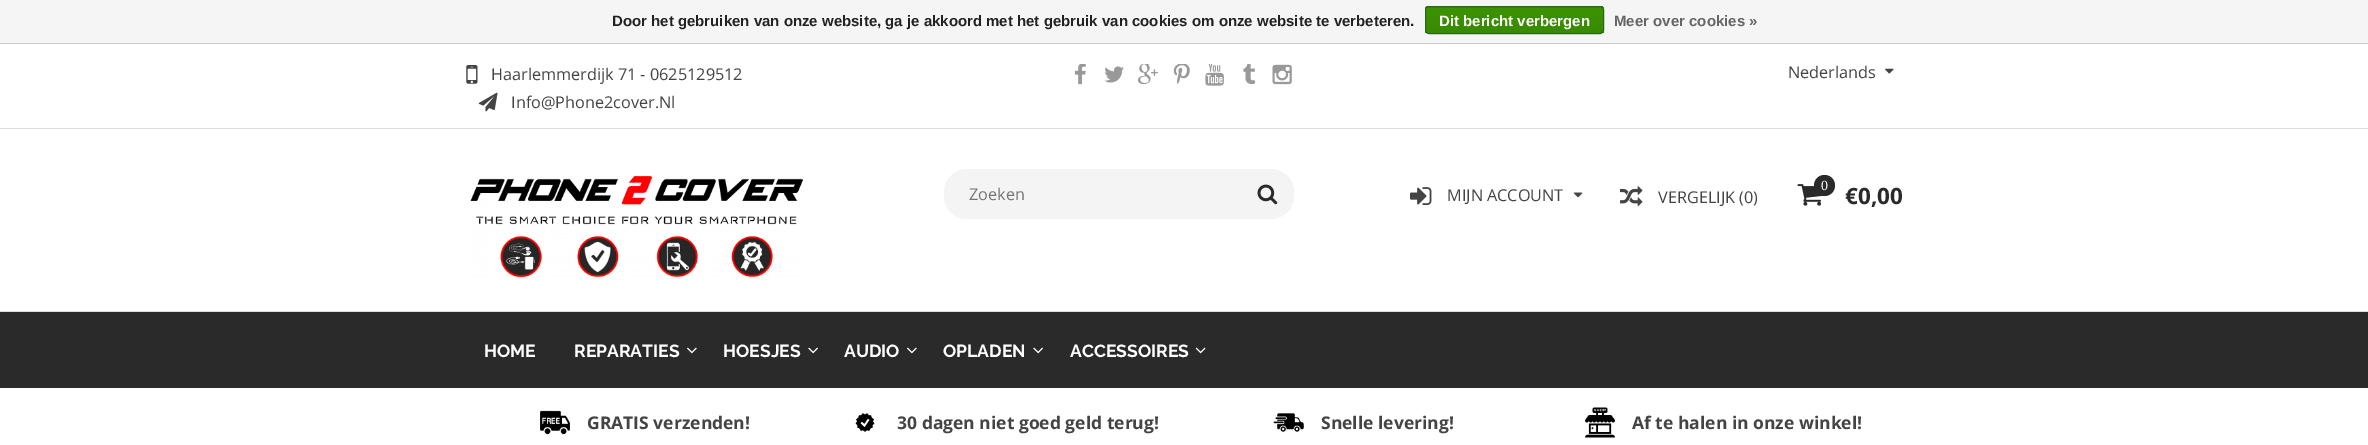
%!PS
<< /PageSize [2368 445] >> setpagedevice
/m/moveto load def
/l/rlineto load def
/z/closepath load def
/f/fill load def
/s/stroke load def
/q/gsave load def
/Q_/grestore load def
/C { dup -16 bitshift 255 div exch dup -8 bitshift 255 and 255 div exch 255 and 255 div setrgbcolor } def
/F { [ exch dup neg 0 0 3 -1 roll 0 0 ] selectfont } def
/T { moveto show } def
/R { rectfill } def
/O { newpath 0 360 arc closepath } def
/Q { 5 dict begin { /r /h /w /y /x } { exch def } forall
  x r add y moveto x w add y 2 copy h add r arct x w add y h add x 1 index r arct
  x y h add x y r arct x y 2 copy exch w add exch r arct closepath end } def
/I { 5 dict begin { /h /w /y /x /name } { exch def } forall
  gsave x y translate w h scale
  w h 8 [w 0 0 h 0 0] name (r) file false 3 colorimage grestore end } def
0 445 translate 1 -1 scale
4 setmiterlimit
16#FFFFFF C
0 0 2368 445 R
16#F5F5F5 C
0 0 2368 43 R
16#CCCCCC C
0 43 2368 1 R
/LiberationSans-Bold 15 F
16#222222 C
(Door het gebruiken van onze website, ga je akkoord met het gebruik van cookies om onze website te verbeteren.) 612 26 T
q
1425 6 179 28 4 Q clip newpath
q 1425 6 m 179 0 l 0 2 l -179 0 l z clip newpath
<< /ShadingType 2 /ColorSpace /DeviceRGB /Coords [1514 -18 1514 7.5] /Extend [true true] /Function << /FunctionType 2 /Domain [0 1] /C0 [.235 .576 0] /C1 [.224 .541 0] /N 1 >> >> shfill Q_
q 1425 8 m 179 0 l 0 25 l -179 0 l z clip newpath
<< /ShadingType 2 /ColorSpace /DeviceRGB /Coords [1514 7.5 1514 33] /Extend [true true] /Function << /FunctionType 2 /Domain [0 1] /C0 [.235 .576 0] /C1 [.224 .541 0] /N 1 >> >> shfill Q_
Q_
16#29691D C
1425.5 6.5 178 27 3.5 Q s
16#FFFFFF C
(Dit bericht verbergen) 1439 26 T
16#666666 C
(Meer over cookies ») 1614 26 T
16#DDDDDD C
0 128 2368 1 R
(1.rgb) 466 65 12 19 I
/OpenSans-Regular 16.25 F
16#444444 C
(Haarlemmerdijk 71 - 0625129512) 491 80 T
(2.rgb) 478 92 20 20 I
(Info@Phone2cover.Nl) 511 108 T
(3.rgb) 1074 64 12 21 I
(4.rgb) 1104 66 20 17 I
(5.rgb) 1137 64 21 21 I
(6.rgb) 1173 64 17 20 I
(7.rgb) 1205 64 19 22 I
(8.rgb) 1243 64 13 21 I
(9.rgb) 1272 64 20 21 I
(Nederlands) 1788 78 T
(10.rgb) 1885 68 9 6 I
(11.rgb) 470 176 333 102 I
16#F4F4F4 C
944 169 350 50 23 Q f
16#757575 C
(Zoeken) 969 200 T
(12.rgb) 1257 184 21 21 I
(13.rgb) 1410 187 22 18 I
16#444444 C
(MIJN ACCOUNT) 1447 201 T
(14.rgb) 1573 192 10 6 I
(15.rgb) 1620 186 23 21 I
(VERGELIJK \(0\)) 1658 203 T
(16.rgb) 1797 184 26 22 I
16#2A2A2A C
1824.5 185.5 10.5 O f
/LiberationSerif-Regular 14 F
16#FFFFFF C
(0) 1821 190 T
/OpenSans-Bold 22.5 F
16#2A2A2A C
(€0,00) 1845 204 T
0 312 2368 76 R
16#DDDDDD C
0 311 2368 1 R
/Raleway-Bold 17.5 F
16#FFFFFF C
(HOME) 484 357 T
(REPARATIES) 574 357 T
(17.rgb) 687 347 10 7 I
(HOESJES) 723 357 T
(18.rgb) 808 347 10 7 I
(AUDIO) 844 357 T
(17.rgb) 907 347 10 7 I
(OPLADEN) 943 357 T
(18.rgb) 1033 347 10 7 I
(ACCESSOIRES) 1070 357 T
(19.rgb) 1195 347 11 7 I
(20.rgb) 540 410 30 25 I
/OpenSans-Bold 17.5 F
16#444444 C
(GRATIS verzenden!) 587 429 T
(21.rgb) 855 413 20 19 I
(30 dagen niet goed geld terug!) 897 429 T
(22.rgb) 1273 413 31 19 I
(Snelle levering!) 1321 429 T
(23.rgb) 1585 407 30 31 I
(Af te halen in onze winkel!) 1632 429 T
showpage
